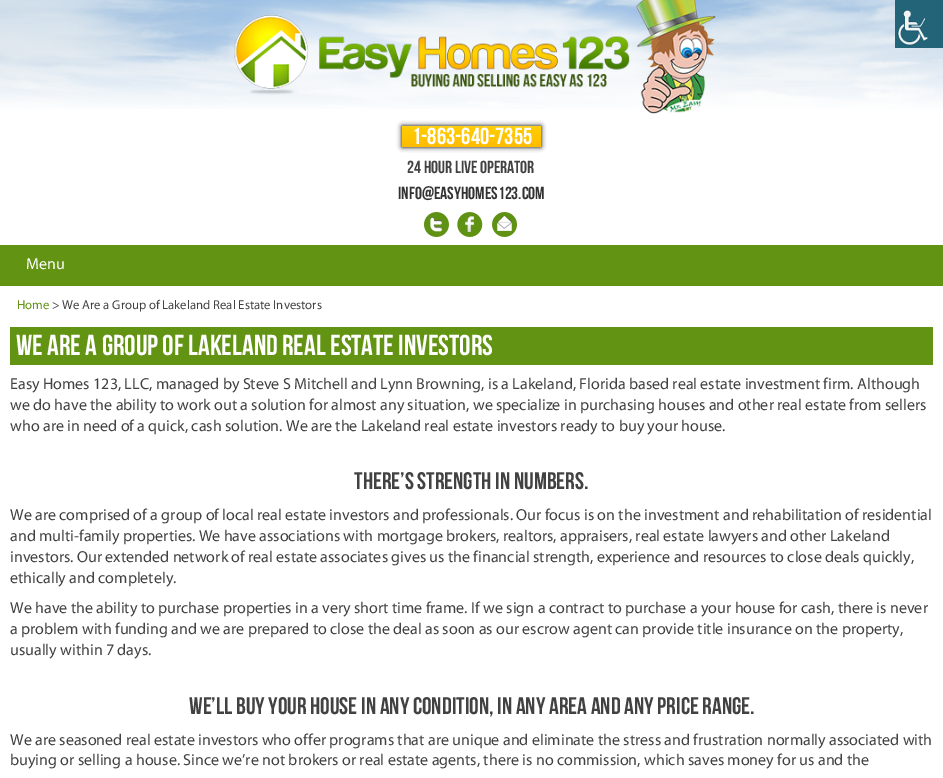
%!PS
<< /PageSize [943 778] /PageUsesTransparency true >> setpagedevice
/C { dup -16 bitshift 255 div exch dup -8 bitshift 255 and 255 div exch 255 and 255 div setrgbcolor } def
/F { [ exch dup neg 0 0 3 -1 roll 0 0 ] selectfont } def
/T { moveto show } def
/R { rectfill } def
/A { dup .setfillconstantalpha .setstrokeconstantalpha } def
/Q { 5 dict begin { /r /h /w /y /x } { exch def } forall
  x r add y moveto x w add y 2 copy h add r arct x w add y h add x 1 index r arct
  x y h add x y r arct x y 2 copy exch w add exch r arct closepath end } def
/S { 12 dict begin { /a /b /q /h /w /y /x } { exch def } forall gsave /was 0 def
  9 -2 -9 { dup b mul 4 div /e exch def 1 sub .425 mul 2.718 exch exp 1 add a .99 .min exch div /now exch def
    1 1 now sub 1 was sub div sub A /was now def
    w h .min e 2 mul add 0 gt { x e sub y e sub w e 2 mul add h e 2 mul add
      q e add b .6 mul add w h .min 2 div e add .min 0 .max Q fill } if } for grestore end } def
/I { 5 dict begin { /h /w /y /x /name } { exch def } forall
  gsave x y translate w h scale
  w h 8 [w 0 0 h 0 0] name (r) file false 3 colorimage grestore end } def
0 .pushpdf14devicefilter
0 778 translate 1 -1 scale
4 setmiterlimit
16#FFFFFF C
0 0 943 778 R
(2.rgb) 0 0 943 109 I
(1.rgb) 895 0 48 48 I
(3.rgb) 228 0 488 114 I
16#000000 C
402 126 139 21 0 2.5 1 S
(4.rgb) 402 126 139 21 I
/BebasNeue-Regular 23.25 F
16#FFFFFF C
(1-863-640-7355) 412 144 T
/BebasNeue-Regular 17.5 F
16#424242 C
(24 Hour live operator) 407 173 T
16#333333 C
(info@easyhomes123.com) 398 199 T
(5.rgb) 424 212 25 25 I
(6.rgb) 457 212 26 25 I
(7.rgb) 492 212 25 25 I
16#629312 C
0 245 943 41 R
/Myriad-Regular 16 F
16#FFFFFF C
(Menu) 26 269 T
/Myriad-Regular 12.8 F
16#629312 C
(Home) 17 309 T
16#424242 C
(> We Are a Group of Lakeland Real Estate Investors) 52 309 T
16#629312 C
10 327 923 38 R
/BebasNeue-Regular 28.75 F
16#FFFFFF C
(WE ARE A GROUP OF LAKELAND REAL ESTATE INVESTORS) 16 355 T
/Myriad-Regular 16 F
16#424242 C
(Easy Homes 123, LLC, managed by Steve S Mitchell and Lynn Browning, is a Lakeland, Florida based real estate investment firm. Although) 10 389 T
(we do have the ability to work out a solution for almost any situation, we specialize in purchasing houses and other real estate from sellers) 10 410 T
(who are in need of a quick, cash solution. We are the Lakeland real estate investors ready to buy your house.) 10 431 T
/BebasNeue-Regular 24 F
(THERE’S STRENGTH IN NUMBERS.) 354 489 T
/Myriad-Regular 16 F
(We are comprised of a group of local real estate investors and professionals. Our focus is on the investment and rehabilitation of residential) 10 520 T
(and multi-family properties. We have associations with mortgage brokers, realtors, appraisers, real estate lawyers and other Lakeland) 10 541 T
(investors. Our extended network of real estate associates gives us the financial strength, experience and resources to close deals quickly,) 10 562 T
(ethically and completely.) 10 583 T
(We have the ability to purchase properties in a very short time frame. If we sign a contract to purchase a your house for cash, there is never) 10 613 T
(a problem with funding and we are prepared to close the deal as soon as our escrow agent can provide title insurance on the property,) 10 634 T
(usually within 7 days.) 10 655 T
/BebasNeue-Regular 24 F
(WE’LL BUY YOUR HOUSE IN ANY CONDITION, IN ANY AREA AND ANY PRICE RANGE.) 189 714 T
/Myriad-Regular 16 F
(We are seasoned real estate investors who offer programs that are unique and eliminate the stress and frustration normally associated with) 10 745 T
(buying or selling a house. Since we’re not brokers or real estate agents, there is no commission, which saves money for us and the) 10 765 T
.poppdf14devicefilter showpage
